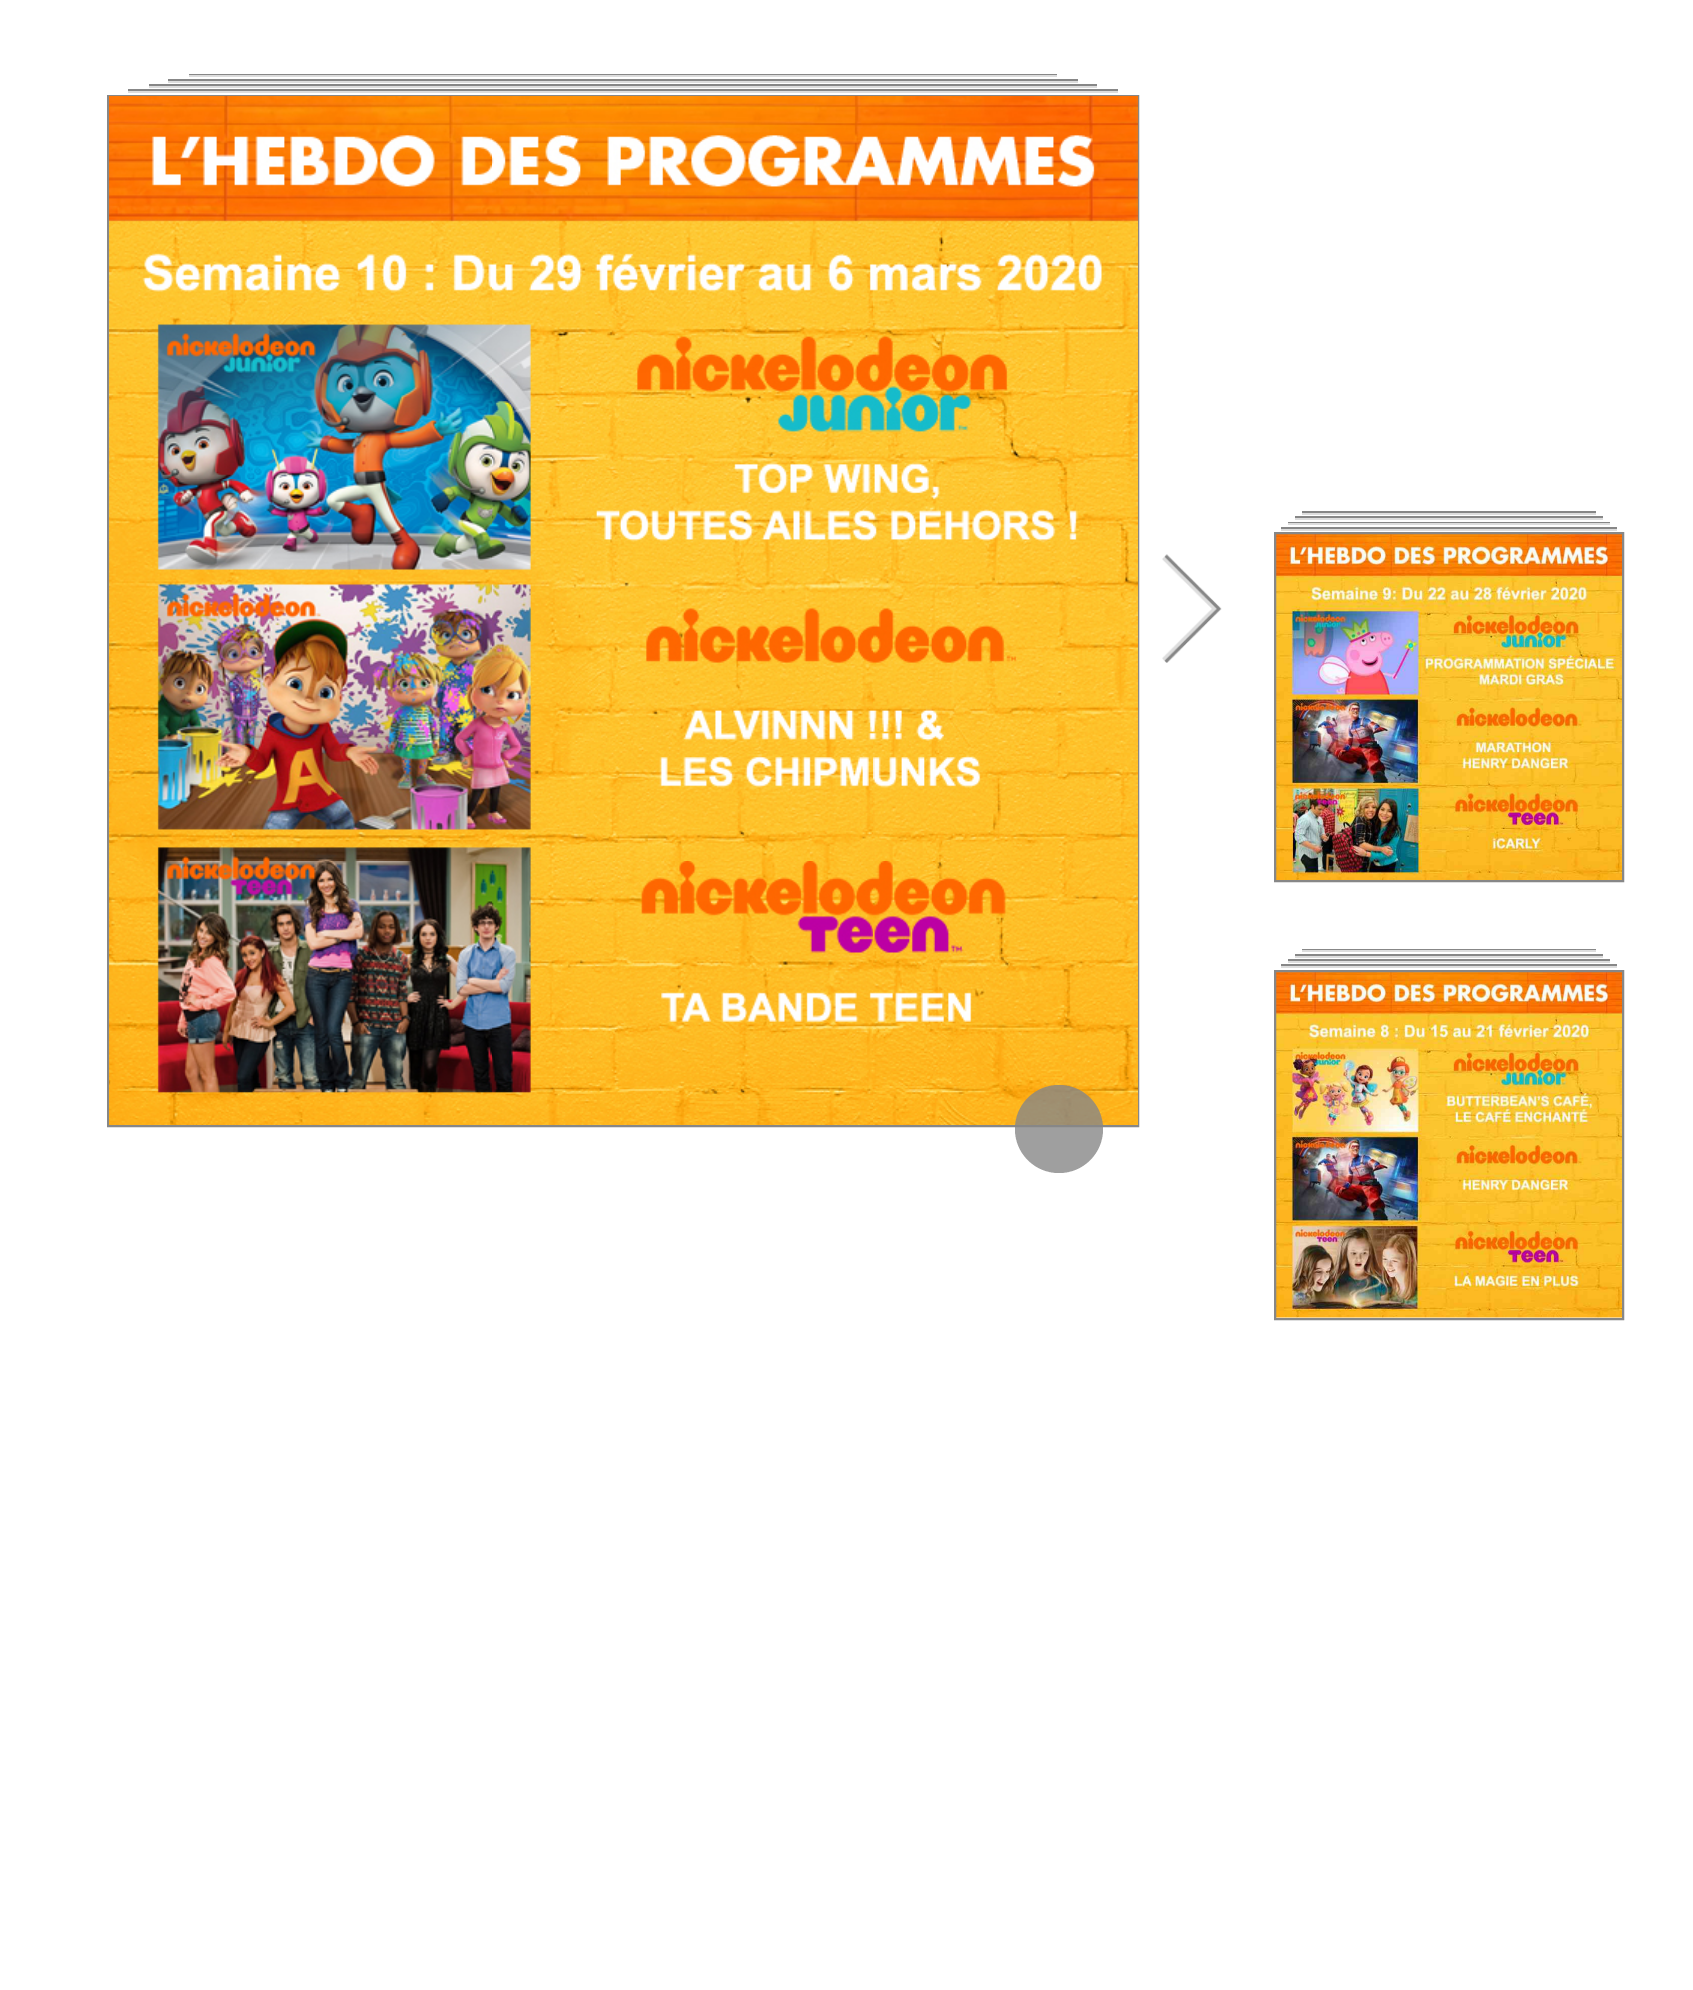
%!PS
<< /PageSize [1693 1990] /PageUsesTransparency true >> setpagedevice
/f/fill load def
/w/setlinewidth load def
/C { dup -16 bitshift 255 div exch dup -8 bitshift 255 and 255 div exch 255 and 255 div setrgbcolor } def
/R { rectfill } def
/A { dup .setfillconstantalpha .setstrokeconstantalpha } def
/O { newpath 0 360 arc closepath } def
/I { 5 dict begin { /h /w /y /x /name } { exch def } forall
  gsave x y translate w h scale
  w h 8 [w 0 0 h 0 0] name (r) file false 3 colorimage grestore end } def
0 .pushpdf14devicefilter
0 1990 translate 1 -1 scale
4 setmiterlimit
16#FFFFFF C
0 0 1693 1990 R
16#878787 C
189 74 868 1 R
16#DDDDDD C
189 75 868 2 R
16#878787 C
168 79 910 2 R
16#DDDDDD C
168 81 910 2 R
16#878787 C
149 84 948 2 R
16#DDDDDD C
149 86 948 2 R
16#878787 C
128 89 990 2 R
16#DDDDDD C
128 91 990 2 R
(1.rgb) 1162 554 60 109 I
16#878787 C
2 w
108 96 1030 1030 rectstroke
(2.rgb) 109 96 1029 1029 I
1302 511 294 2 R
16#DDDDDD C
1302 513 294 2 R
16#878787 C
1295 516 308 2 R
16#DDDDDD C
1295 518 308 2 R
16#878787 C
1288 522 322 1 R
16#DDDDDD C
1288 523 322 2 R
16#878787 C
1281 527 336 2 R
16#DDDDDD C
1281 529 336 2 R
(3.rgb) 1276 534 346 346 I
16#878787 C
1275 533 348 348 rectstroke
1302 949 294 1 R
16#DDDDDD C
1302 950 294 2 R
16#878787 C
1295 954 308 2 R
16#DDDDDD C
1295 956 308 2 R
16#878787 C
1288 959 322 2 R
16#DDDDDD C
1288 961 322 2 R
16#878787 C
1281 964 336 2 R
16#DDDDDD C
1281 966 336 2 R
16#FAFAFA C
1276 1317 346 1 R
(4.rgb) 1276 972 346 346 I
16#878787 C
1275 971 348 348 rectstroke
0.8 A
1059 1129 44 O f
.poppdf14devicefilter showpage
